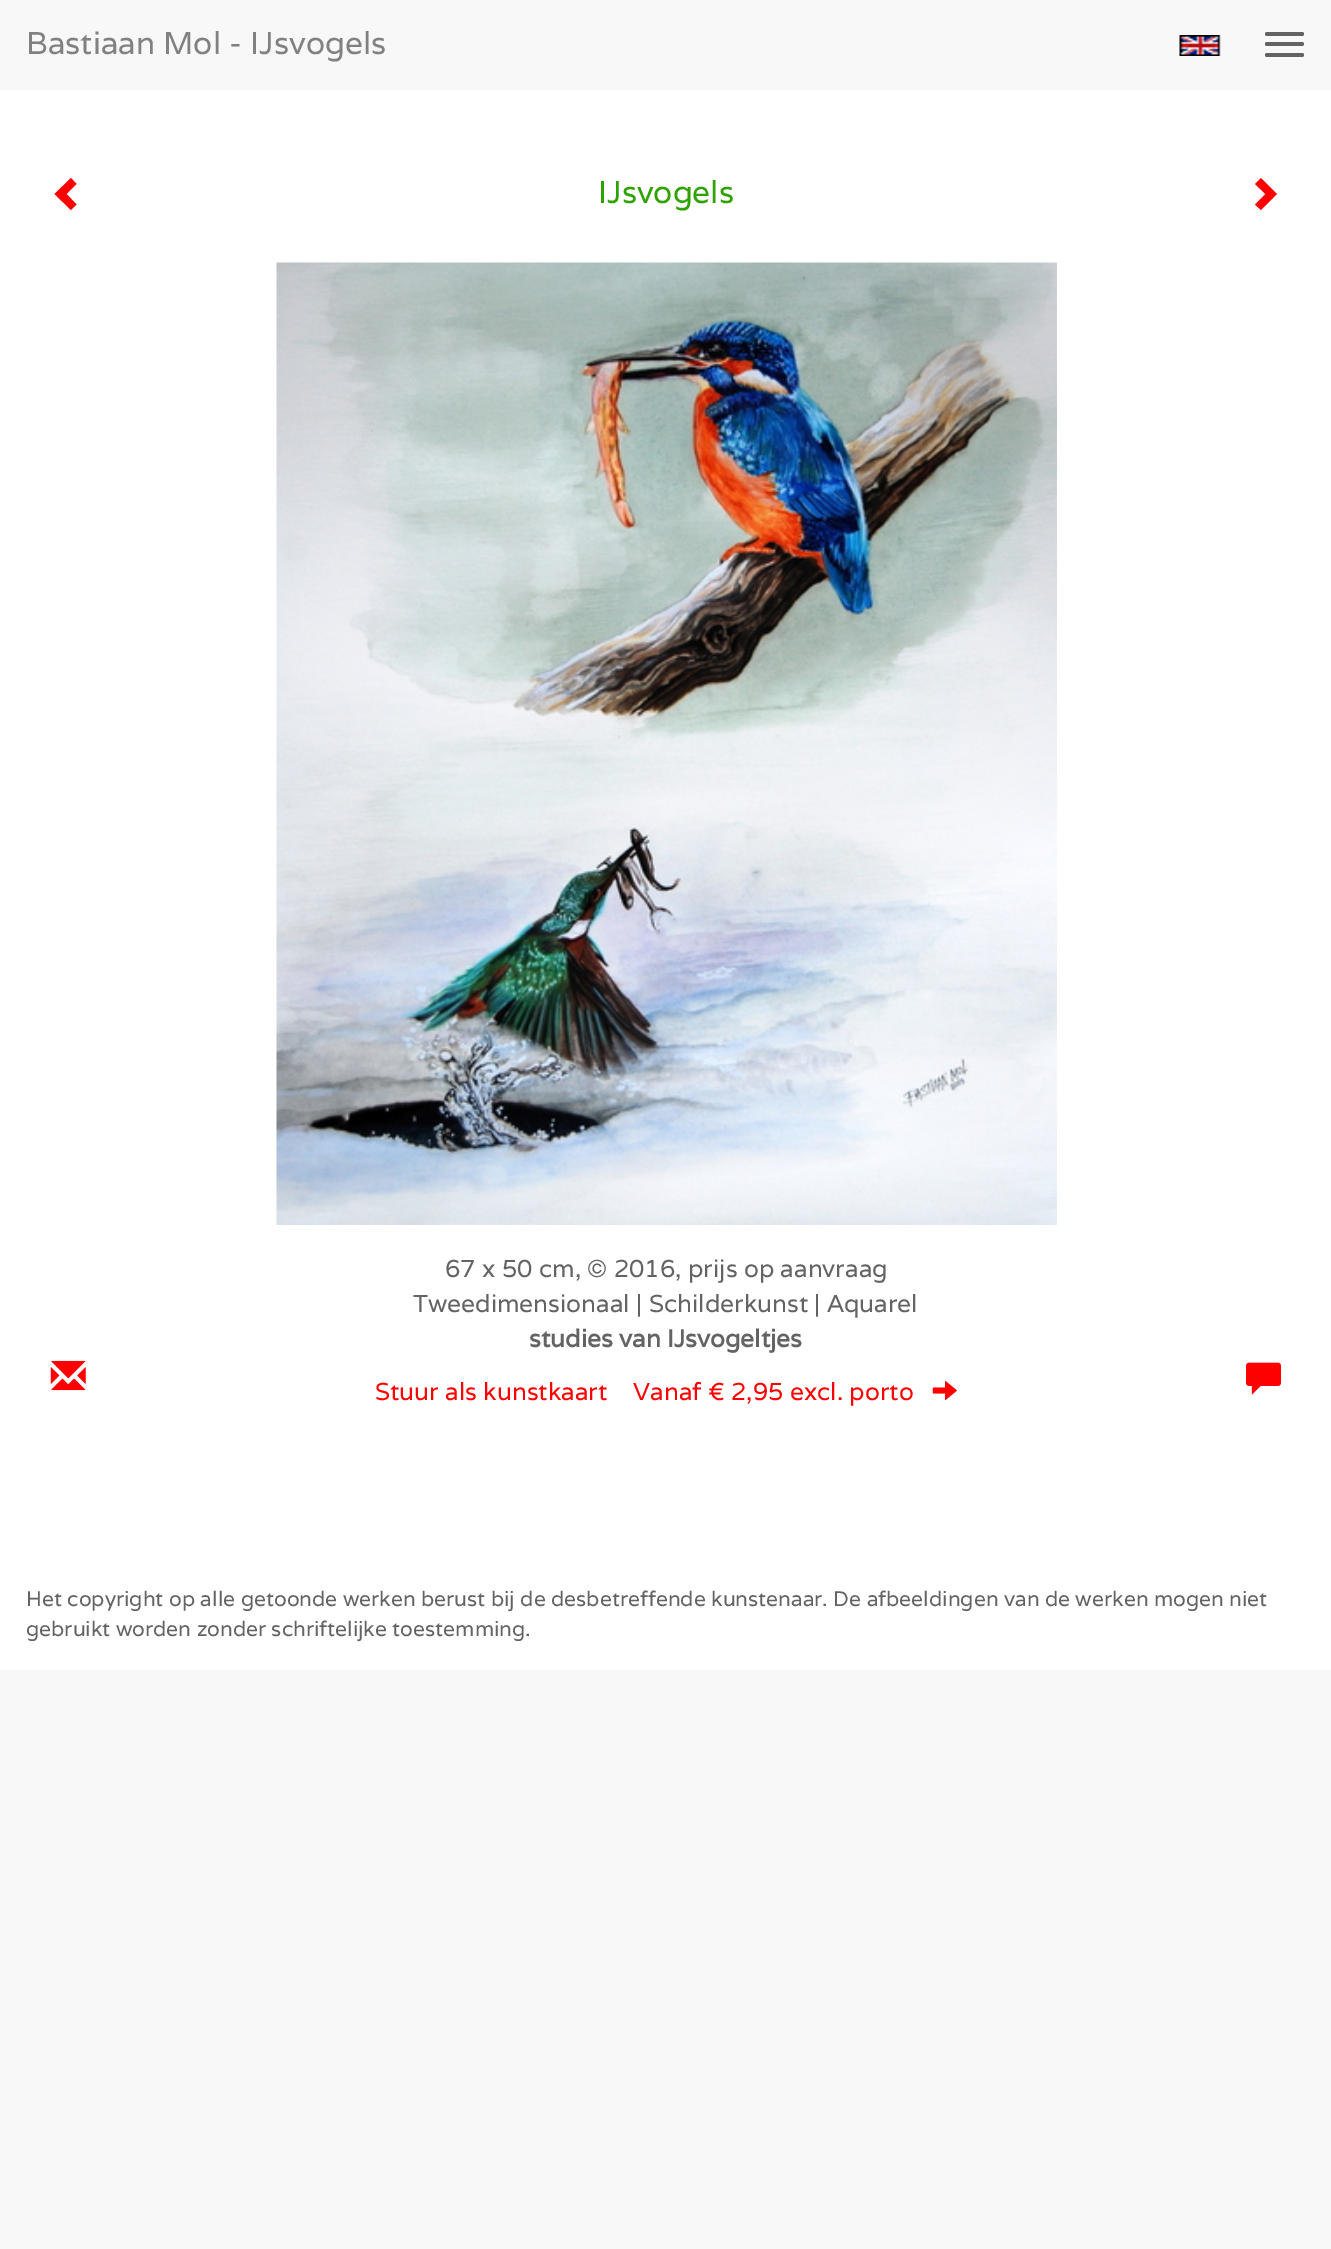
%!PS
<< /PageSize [1331 2249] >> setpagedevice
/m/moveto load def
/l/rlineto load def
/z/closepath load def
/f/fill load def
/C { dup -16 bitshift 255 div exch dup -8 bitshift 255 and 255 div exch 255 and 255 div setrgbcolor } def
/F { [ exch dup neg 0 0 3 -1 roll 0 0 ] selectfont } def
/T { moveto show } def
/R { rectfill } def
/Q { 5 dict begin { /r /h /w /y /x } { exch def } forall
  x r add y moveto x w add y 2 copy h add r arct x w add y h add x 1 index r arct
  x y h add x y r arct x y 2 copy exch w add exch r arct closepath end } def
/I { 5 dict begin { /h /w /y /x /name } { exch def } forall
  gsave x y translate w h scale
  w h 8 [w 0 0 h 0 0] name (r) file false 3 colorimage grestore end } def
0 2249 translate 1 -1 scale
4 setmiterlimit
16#F8F8F8 C
0 0 1331 2249 R
16#FFFFFF C
0 90 1331 1580 R
/Varela-Regular 31.5 F
16#828181 C
(Bastiaan Mol - IJsvogels) 26 54 T
16#646363 C
1265 32 39 4 2 Q f
1265 42 39 4 2 Q f
1265 53 39 4 2 Q f
(1.rgb) 1179 35 42 21 I
16#FF0000 C
76.5 184 m -10 10 l 10 10.5 l -5.5 5.5 l -16.5 -16 l 16.5 -16 l z f
16#2FA200 C
(IJsvogels) 598 203 T
16#FF0000 C
1277 194 m -16 16 l -6 -5.5 l 10.5 -10.5 l -10.5 -10 l 6 -6 l z f
(2.rgb) 276 262 781 963 I
/Varela-Regular 24.5 F
16#646363 C
(67 x 50 cm, © 2016, prijs op aanvraag) 445 1277 T
(Tweedimensionaal | Schilderkunst | Aquarel) 413 1312 T
/Varela-Bold 24.5 F
(studies van IJsvogeltjes) 529 1347 T
(3.rgb) 50 1360 36 31 I
/Varela-Regular 24.5 F
16#FF0000 C
(Stuur als kunstkaart) 375 1400 T
(Vanaf € 2,95 excl. porto) 633 1400 T
(4.rgb) 932 1381 25 20 I
(5.rgb) 1246 1362 35 33 I
/Varela-Regular 21 F
16#646363 C
(Het copyright op alle getoonde werken berust bij de desbetreffende kunstenaar. De afbeeldingen van de werken mogen niet) 26 1606 T
(gebruikt worden zonder schriftelijke toestemming.) 26 1636 T
showpage
